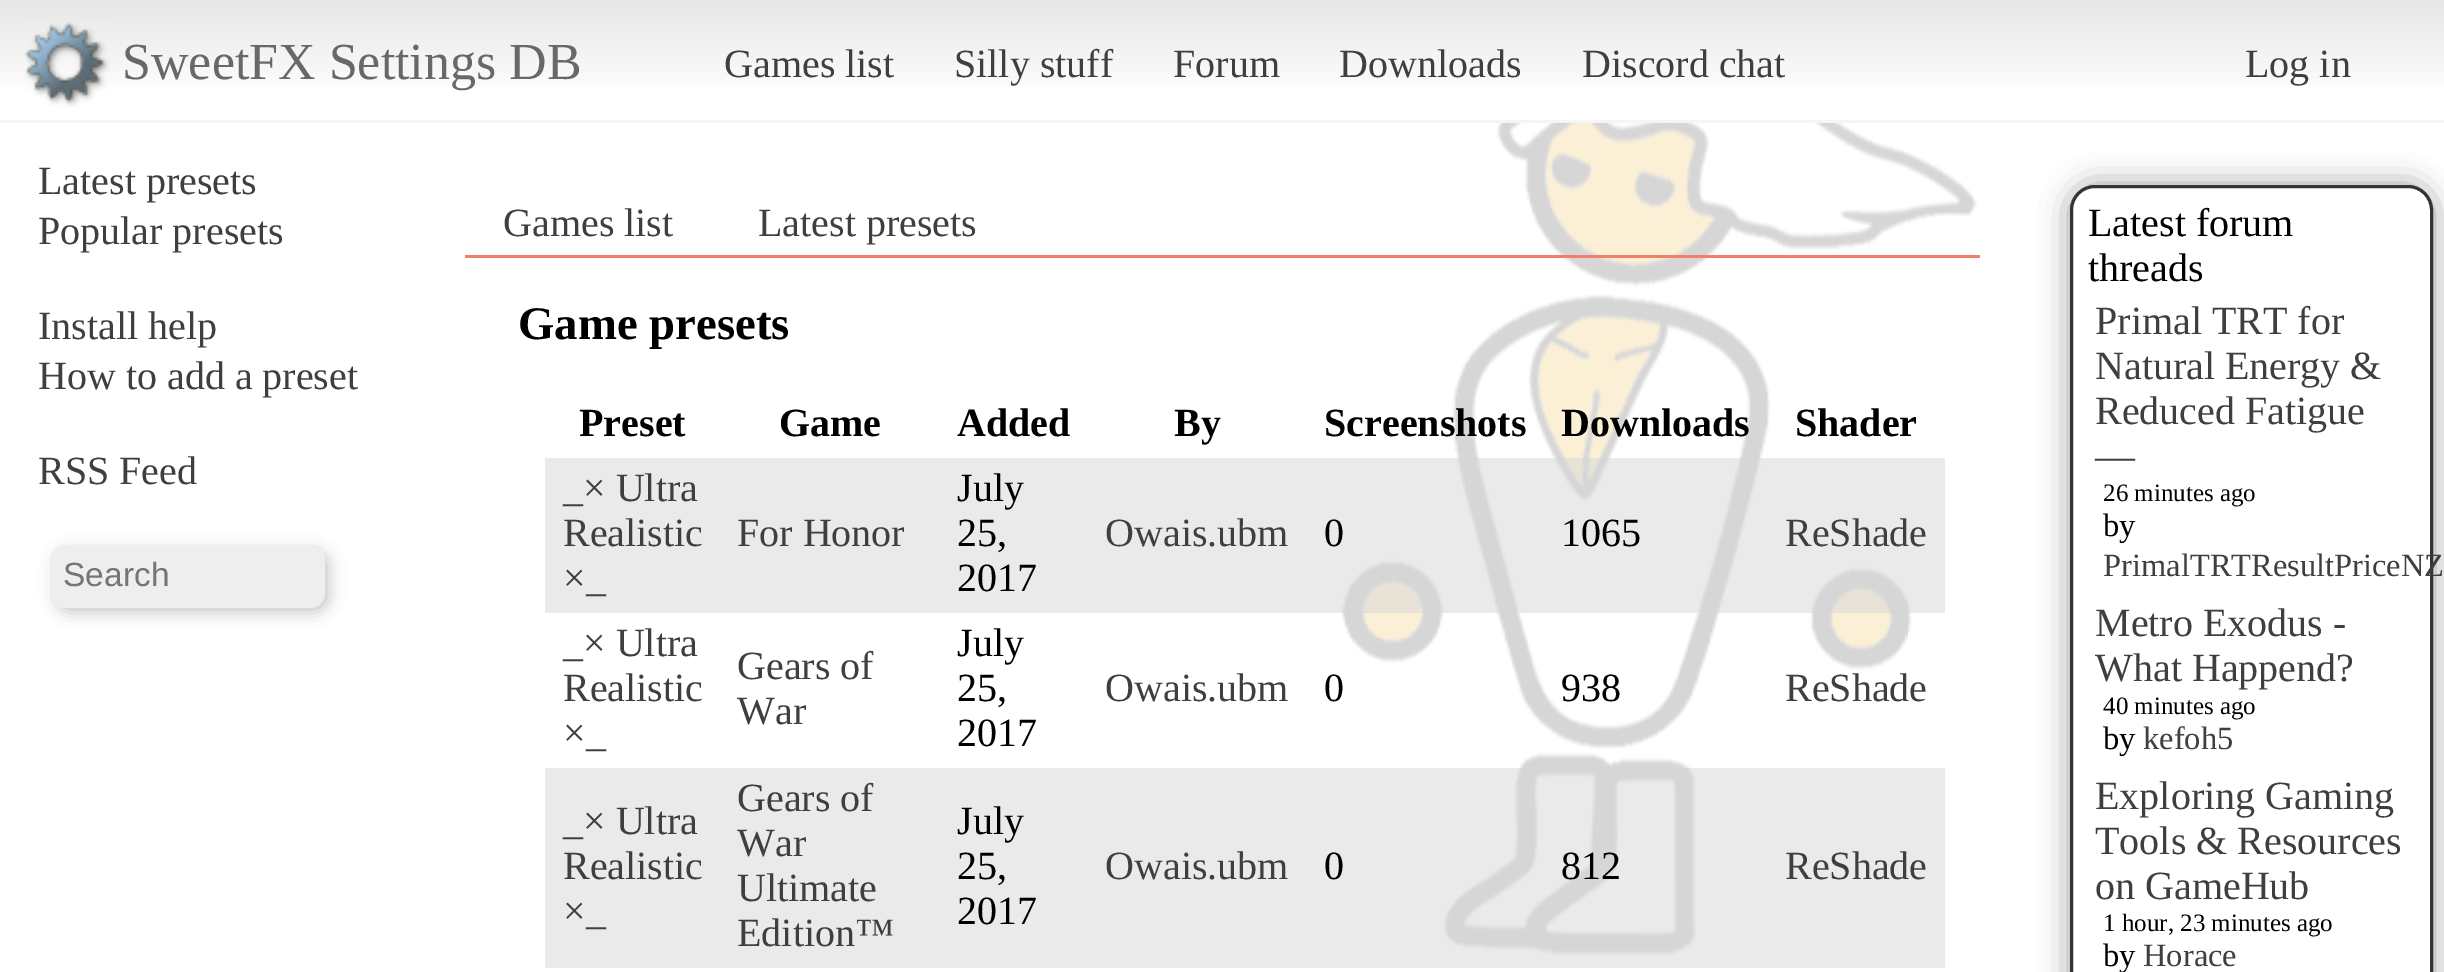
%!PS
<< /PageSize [2444 972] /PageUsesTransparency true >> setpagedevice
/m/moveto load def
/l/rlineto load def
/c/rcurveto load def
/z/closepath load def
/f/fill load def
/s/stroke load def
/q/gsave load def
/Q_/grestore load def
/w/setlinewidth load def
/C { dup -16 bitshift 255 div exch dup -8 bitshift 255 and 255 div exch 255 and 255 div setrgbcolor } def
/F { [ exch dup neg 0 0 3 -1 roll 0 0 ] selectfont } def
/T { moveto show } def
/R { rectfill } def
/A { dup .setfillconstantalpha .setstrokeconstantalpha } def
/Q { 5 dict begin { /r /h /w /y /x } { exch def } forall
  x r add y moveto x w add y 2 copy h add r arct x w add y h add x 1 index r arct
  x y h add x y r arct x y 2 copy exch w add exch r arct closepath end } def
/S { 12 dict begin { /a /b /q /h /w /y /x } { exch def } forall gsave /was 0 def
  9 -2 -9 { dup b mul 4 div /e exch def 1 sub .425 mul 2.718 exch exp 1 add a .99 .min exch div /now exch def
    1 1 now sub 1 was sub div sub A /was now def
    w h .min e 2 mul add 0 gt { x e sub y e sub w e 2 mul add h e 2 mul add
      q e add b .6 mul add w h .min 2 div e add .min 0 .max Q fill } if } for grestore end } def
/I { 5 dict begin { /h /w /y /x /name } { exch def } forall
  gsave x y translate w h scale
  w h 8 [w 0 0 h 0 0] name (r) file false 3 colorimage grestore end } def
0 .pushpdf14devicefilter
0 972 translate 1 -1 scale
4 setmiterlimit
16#FFFFFF C
0 0 2444 972 R
(1.rgb) 1341 123 637 833 I
q 0 0 m 2444 0 l 0 86 l -2444 0 l z clip newpath
<< /ShadingType 2 /ColorSpace /DeviceRGB /Coords [1223 0 1223 120] /Extend [true true] /Function << /FunctionType 3 /Domain [0 1] /Functions [<< /FunctionType 2 /Domain [0 1] /C0 [.902 .902 .902] /C1 [1 1 1] /N 1 >> << /FunctionType 2 /Domain [0 1] /C0 [1 1 1] /C1 [1 1 1] /N 1 >>] /Bounds [.8] /Encode [0 1 0 1] >> >> shfill Q_
16#F5F5F5 C
0 120 2444 3 R
(2.rgb) 24 22 86 85 I
/LiberationSerif-Regular 52 F
16#686868 C
(SweetFX Settings DB) 122 79 T
/LiberationSerif-Regular 40 F
16#3F3F3F C
(Games list) 724 77 T
(Silly stuff) 954 77 T
(Forum) 1173 77 T
(Downloads) 1339 77 T
(Discord chat) 1582 77 T
(Log in) 2245 77 T
(Latest presets) 38 194 T
(Popular presets) 38 244 T
(Install help) 38 339 T
(How to add a preset) 38 389 T
(RSS Feed) 38 484 T
16#323232 C
55 550 275 63 15 7.5 .25 S
16#EEEEEE C
50 545 275 63 15 Q f
/LiberationSans-Regular 33.5 F
16#757575 C
(Search) 63 586 T
0.84 A
16#FFFFFF C
1341 123 637 833 R
1 A
16#F0806A C
465 255 1515 3 R
/LiberationSerif-Regular 40 F
16#3F3F3F C
(Games list) 503 236 T
(Latest presets) 758 236 T
/LiberationSerif-Bold 46.75 F
16#000000 C
(Game presets) 518 339 T
/LiberationSerif-Bold 40 F
(Preset) 579 436 T
(Game) 779 436 T
(Added) 957 436 T
(By) 1174 436 T
(Screenshots) 1324 436 T
(Downloads) 1561 436 T
(Shader) 1795 436 T
0.49 A
16#D5D5D5 C
545 458 1400 155 R
/LiberationSerif-Regular 40 F
1 A
16#3F3F3F C
(_× Ultra) 563 501 T
(Realistic) 563 546 T
(×_) 563 591 T
(For Honor) 737 546 T
16#000000 C
(July) 957 501 T
(25,) 957 546 T
(2017) 957 591 T
16#3F3F3F C
(Owais.ubm) 1105 546 T
16#000000 C
(0) 1324 546 T
(1065) 1561 546 T
16#3F3F3F C
(ReShade) 1785 546 T
(_× Ultra) 563 656 T
(Realistic) 563 701 T
(×_) 563 746 T
(Gears of) 737 679 T
(War) 737 724 T
16#000000 C
(July) 957 656 T
(25,) 957 701 T
(2017) 957 746 T
16#3F3F3F C
(Owais.ubm) 1105 701 T
16#000000 C
(0) 1324 701 T
(938) 1561 701 T
16#3F3F3F C
(ReShade) 1785 701 T
0.49 A
16#D5D5D5 C
545 768 1400 200 R
1 A
16#3F3F3F C
(_× Ultra) 563 834 T
(Realistic) 563 879 T
(×_) 563 924 T
(Gears of) 737 811 T
(War) 737 856 T
(Ultimate) 737 901 T
(Edition™) 737 946 T
16#000000 C
(July) 957 834 T
(25,) 957 879 T
(2017) 957 924 T
16#3F3F3F C
(Owais.ubm) 1105 879 T
16#000000 C
(0) 1324 879 T
(812) 1561 879 T
16#3F3F3F C
(ReShade) 1785 879 T
q
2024 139 m 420 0 l 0 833 l -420 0 l z 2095 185 m 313 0 l 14 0 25 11 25 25 c 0 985 l 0 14 -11 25 -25 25 c -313 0 l -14 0 -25 -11 -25 -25 c 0 -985 l 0 -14 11 -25 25 -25 c z eoclip newpath
16#999999 C
2070 185 363 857 25 15 1 S
Q_
16#333333 C
3 w
2071.5 186.5 360 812 23.5 Q s
16#000000 C
(Latest forum) 2088 236 T
(threads) 2088 281 T
16#3F3F3F C
(Primal TRT for) 2095 334 T
(Natural Energy &) 2095 379 T
(Reduced Fatigue) 2095 424 T
(—) 2095 469 T
/LiberationSerif-Regular 25 F
16#000000 C
(26 minutes ago) 2103 501 T
/LiberationSerif-Regular 32.5 F
(by) 2103 536 T
16#3F3F3F C
(PrimalTRTResultPriceNZ) 2103 576 T
/LiberationSerif-Regular 40 F
(Metro Exodus -) 2095 636 T
(What Happend?) 2095 681 T
/LiberationSerif-Regular 25 F
16#000000 C
(40 minutes ago) 2103 714 T
/LiberationSerif-Regular 32.5 F
(by) 2103 749 T
16#3F3F3F C
(kefoh5) 2143 749 T
/LiberationSerif-Regular 40 F
(Exploring Gaming) 2095 809 T
(Tools & Resources) 2095 854 T
(on GameHub) 2095 899 T
/LiberationSerif-Regular 25 F
16#000000 C
(1 hour, 23 minutes ago) 2103 931 T
/LiberationSerif-Regular 32.5 F
(by) 2103 966 T
16#3F3F3F C
(Horace) 2143 966 T
.poppdf14devicefilter showpage
